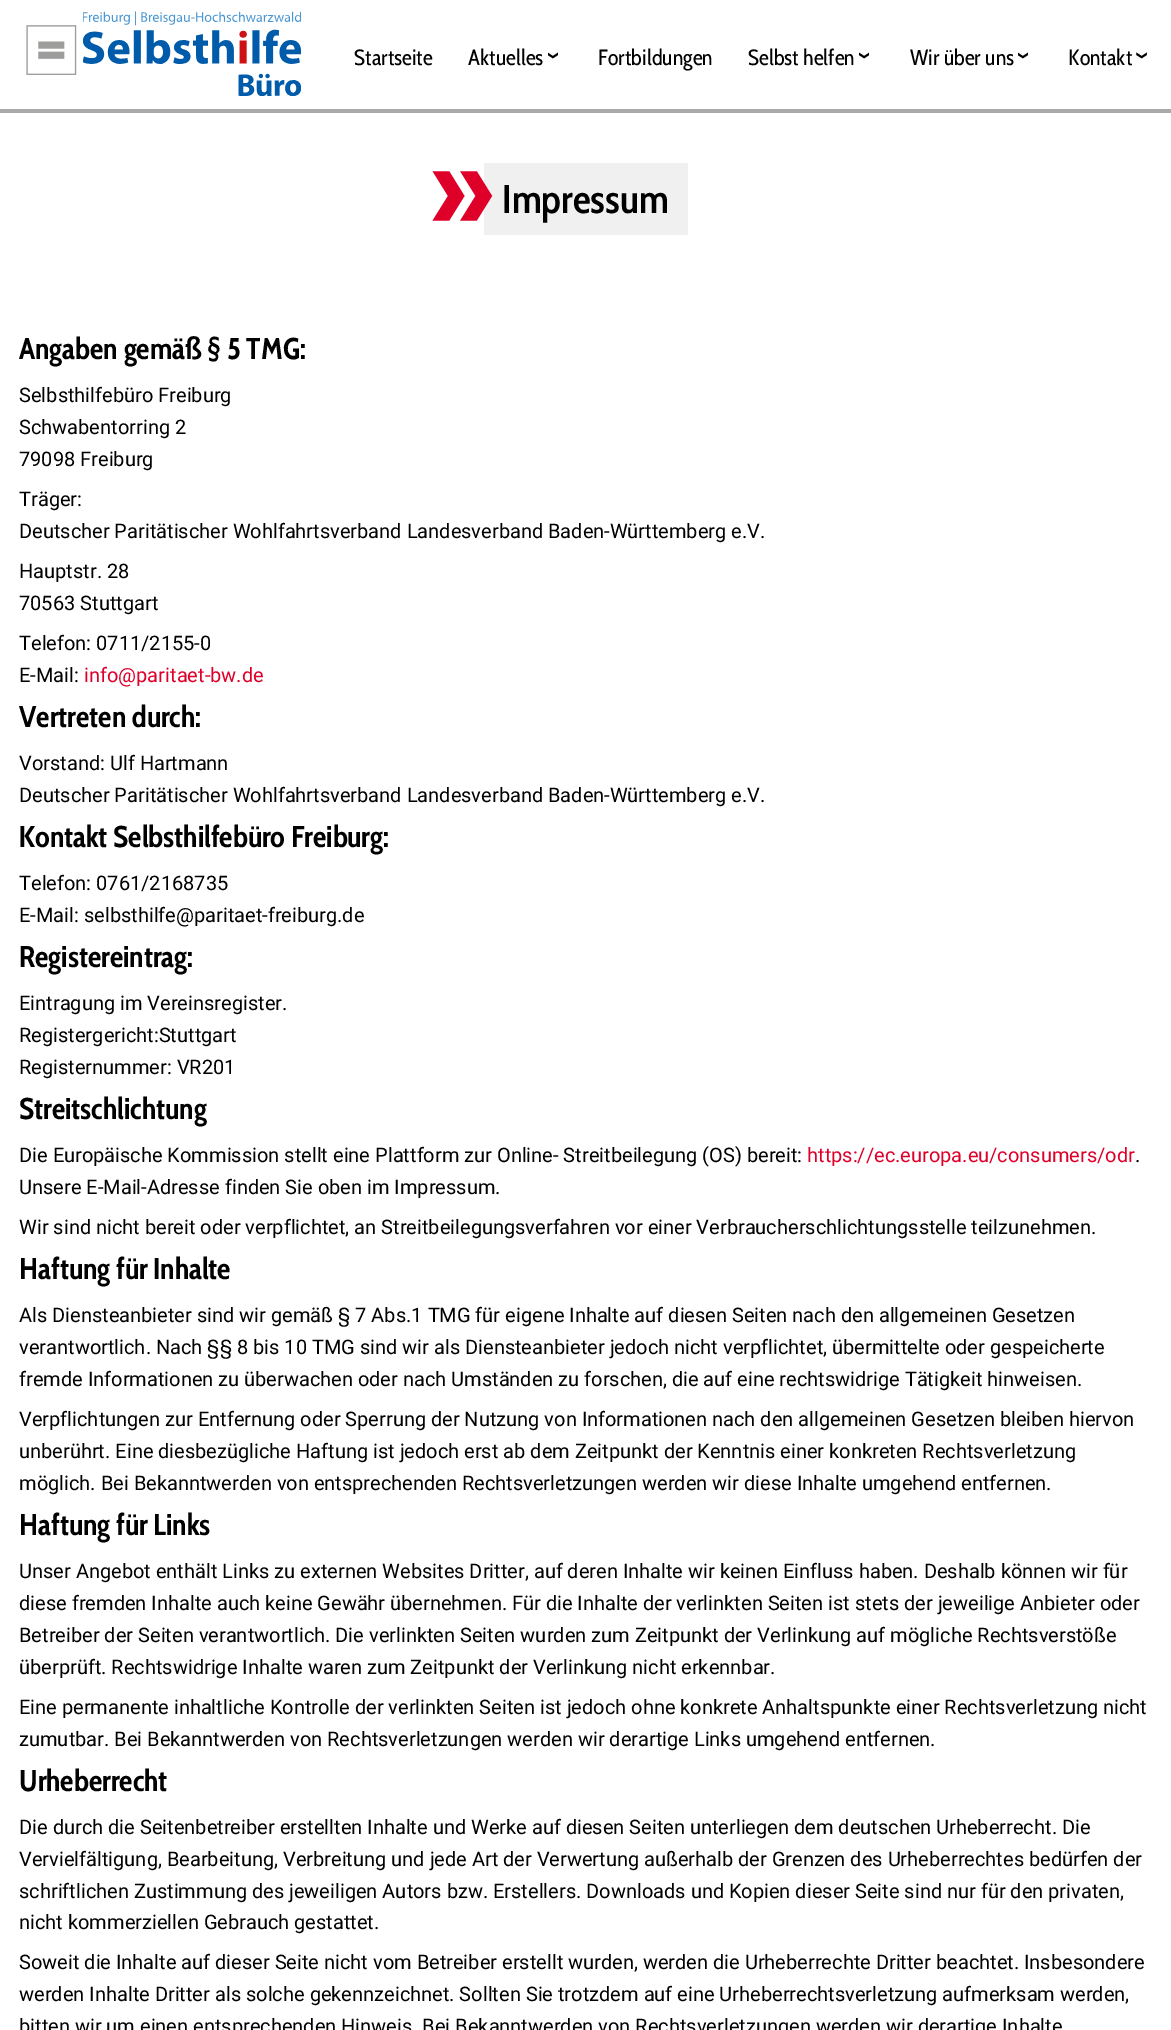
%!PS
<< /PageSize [1171 2030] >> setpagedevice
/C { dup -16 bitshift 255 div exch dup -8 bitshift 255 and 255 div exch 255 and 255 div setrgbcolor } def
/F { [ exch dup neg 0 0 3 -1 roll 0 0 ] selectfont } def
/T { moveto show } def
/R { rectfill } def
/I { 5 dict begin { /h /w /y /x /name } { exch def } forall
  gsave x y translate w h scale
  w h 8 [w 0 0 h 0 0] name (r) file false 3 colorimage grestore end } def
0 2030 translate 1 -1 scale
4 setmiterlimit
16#FFFFFF C
0 0 1171 2030 R
16#AAAAAA C
0 109 1171 4 R
(1.rgb) 26 25 51 50 I
(2.rgb) 83 11 218 85 I
/CabinCondensed-Regular 22 F
16#000000 C
(Startseite) 354 65 T
(Aktuelles) 468 65 T
(3.rgb) 548 52 10 7 I
(Fortbildungen) 598 65 T
(Selbst helfen) 748 65 T
(4.rgb) 859 52 10 7 I
(Wir über uns) 910 65 T
(3.rgb) 1018 52 10 7 I
(Kontakt) 1068 65 T
(5.rgb) 1136 52 11 7 I
16#F0F0F0 C
484 163 204 72 R
/CabinCondensed-Bold 120 F
16#DF002A C
(») 430 230 T
/CabinCondensed-SemiBold 40 F
16#000000 C
(Impressum) 502 213 T
/CabinCondensed-Bold 30 F
(Angaben gemäß § 5 TMG:) 19 359 T
/Roboto-Regular 20 F
(Selbsthilfebüro Freiburg) 19 402 T
(Schwabentorring 2) 19 434 T
(79098 Freiburg) 19 466 T
(Träger:) 19 506 T
(Deutscher Paritätischer Wohlfahrtsverband Landesverband Baden-Württemberg e.V.) 19 538 T
(Hauptstr. 28) 19 578 T
(70563 Stuttgart) 19 610 T
(Telefon: 0711/2155-0) 19 650 T
(E-Mail:) 19 682 T
16#DF002A C
(info@paritaet-bw.de) 84 682 T
/CabinCondensed-Bold 30 F
16#000000 C
(Vertreten durch:) 19 727 T
/Roboto-Regular 20 F
(Vorstand: Ulf Hartmann) 19 770 T
(Deutscher Paritätischer Wohlfahrtsverband Landesverband Baden-Württemberg e.V.) 19 802 T
/CabinCondensed-Bold 30 F
(Kontakt Selbsthilfebüro Freiburg:) 19 847 T
/Roboto-Regular 20 F
(Telefon: 0761/2168735) 19 890 T
(E-Mail: selbsthilfe@paritaet-freiburg.de) 19 922 T
/CabinCondensed-Bold 30 F
(Registereintrag:) 19 967 T
/Roboto-Regular 20 F
(Eintragung im Vereinsregister.) 19 1010 T
(Registergericht:Stuttgart) 19 1042 T
(Registernummer: VR201) 19 1074 T
/CabinCondensed-Bold 30 F
(Streitschlichtung) 19 1119 T
/Roboto-Regular 20 F
(Die Europäische Kommission stellt eine Plattform zur Online- Streitbeilegung \(OS\) bereit:) 19 1162 T
16#DF002A C
(https://ec.europa.eu/consumers/odr) 807 1162 T
16#000000 C
(.) 1135 1162 T
(Unsere E-Mail-Adresse finden Sie oben im Impressum.) 19 1194 T
(Wir sind nicht bereit oder verpflichtet, an Streitbeilegungsverfahren vor einer Verbraucherschlichtungsstelle teilzunehmen.) 19 1234 T
/CabinCondensed-Bold 30 F
(Haftung für Inhalte) 19 1279 T
/Roboto-Regular 20 F
(Als Diensteanbieter sind wir gemäß § 7 Abs.1 TMG für eigene Inhalte auf diesen Seiten nach den allgemeinen Gesetzen) 19 1322 T
(verantwortlich. Nach §§ 8 bis 10 TMG sind wir als Diensteanbieter jedoch nicht verpflichtet, übermittelte oder gespeicherte) 19 1354 T
(fremde Informationen zu überwachen oder nach Umständen zu forschen, die auf eine rechtswidrige Tätigkeit hinweisen.) 19 1386 T
(Verpflichtungen zur Entfernung oder Sperrung der Nutzung von Informationen nach den allgemeinen Gesetzen bleiben hiervon) 19 1426 T
(unberührt. Eine diesbezügliche Haftung ist jedoch erst ab dem Zeitpunkt der Kenntnis einer konkreten Rechtsverletzung) 19 1458 T
(möglich. Bei Bekanntwerden von entsprechenden Rechtsverletzungen werden wir diese Inhalte umgehend entfernen.) 19 1490 T
/CabinCondensed-Bold 30 F
(Haftung für Links) 19 1535 T
/Roboto-Regular 20 F
(Unser Angebot enthält Links zu externen Websites Dritter, auf deren Inhalte wir keinen Einfluss haben. Deshalb können wir für) 19 1578 T
(diese fremden Inhalte auch keine Gewähr übernehmen. Für die Inhalte der verlinkten Seiten ist stets der jeweilige Anbieter oder) 19 1610 T
(Betreiber der Seiten verantwortlich. Die verlinkten Seiten wurden zum Zeitpunkt der Verlinkung auf mögliche Rechtsverstöße) 19 1642 T
(überprüft. Rechtswidrige Inhalte waren zum Zeitpunkt der Verlinkung nicht erkennbar.) 19 1674 T
(Eine permanente inhaltliche Kontrolle der verlinkten Seiten ist jedoch ohne konkrete Anhaltspunkte einer Rechtsverletzung nicht) 19 1714 T
(zumutbar. Bei Bekanntwerden von Rechtsverletzungen werden wir derartige Links umgehend entfernen.) 19 1746 T
/CabinCondensed-Bold 30 F
(Urheberrecht) 19 1791 T
/Roboto-Regular 20 F
(Die durch die Seitenbetreiber erstellten Inhalte und Werke auf diesen Seiten unterliegen dem deutschen Urheberrecht. Die) 19 1834 T
(Vervielfältigung, Bearbeitung, Verbreitung und jede Art der Verwertung außerhalb der Grenzen des Urheberrechtes bedürfen der) 19 1866 T
(schriftlichen Zustimmung des jeweiligen Autors bzw. Erstellers. Downloads und Kopien dieser Seite sind nur für den privaten,) 19 1898 T
(nicht kommerziellen Gebrauch gestattet.) 19 1929 T
(Soweit die Inhalte auf dieser Seite nicht vom Betreiber erstellt wurden, werden die Urheberrechte Dritter beachtet. Insbesondere) 19 1969 T
(werden Inhalte Dritter als solche gekennzeichnet. Sollten Sie trotzdem auf eine Urheberrechtsverletzung aufmerksam werden,) 19 2001 T
(bitten wir um einen entsprechenden Hinweis. Bei Bekanntwerden von Rechtsverletzungen werden wir derartige Inhalte) 19 2033 T
showpage
